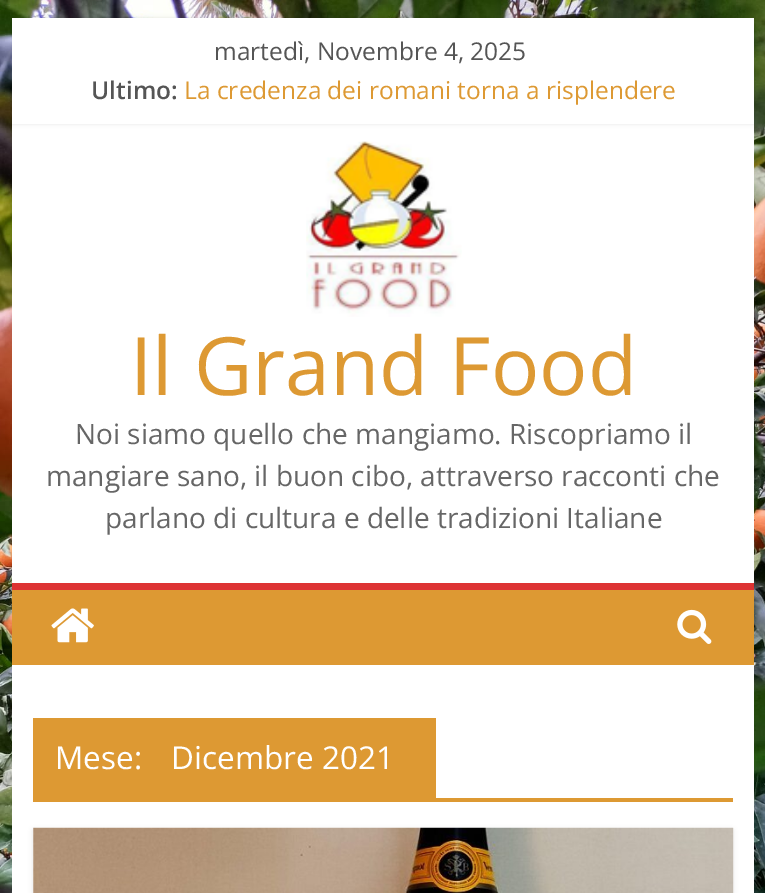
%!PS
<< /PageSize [765 893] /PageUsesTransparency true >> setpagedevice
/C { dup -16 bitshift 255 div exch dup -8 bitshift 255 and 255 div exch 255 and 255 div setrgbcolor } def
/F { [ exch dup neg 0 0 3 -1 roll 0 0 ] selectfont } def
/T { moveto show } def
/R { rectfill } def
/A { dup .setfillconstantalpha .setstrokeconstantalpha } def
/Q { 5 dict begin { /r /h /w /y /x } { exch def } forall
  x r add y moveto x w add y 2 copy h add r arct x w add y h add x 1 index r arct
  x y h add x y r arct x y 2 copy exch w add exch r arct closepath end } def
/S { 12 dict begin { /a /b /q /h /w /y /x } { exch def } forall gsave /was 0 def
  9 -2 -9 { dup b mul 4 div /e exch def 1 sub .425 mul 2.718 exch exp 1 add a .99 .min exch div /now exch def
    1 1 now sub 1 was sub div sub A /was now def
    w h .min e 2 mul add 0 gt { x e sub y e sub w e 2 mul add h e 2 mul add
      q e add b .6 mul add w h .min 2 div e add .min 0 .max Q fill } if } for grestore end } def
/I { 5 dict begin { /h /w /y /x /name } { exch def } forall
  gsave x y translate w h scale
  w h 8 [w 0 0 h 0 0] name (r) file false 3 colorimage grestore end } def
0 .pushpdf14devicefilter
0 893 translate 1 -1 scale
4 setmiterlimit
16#FFFFFF C
0 0 765 893 R
(1.rgb) 0 0 765 893 I
12 124 742 459 R
16#000000 C
12 18 742 106 0 2 .1 S
16#FFFFFF C
12 18 742 106 R
/OpenSans-Regular 24.5 F
16#555555 C
(martedì, Novembre 4, 2025) 214 60 T
/OpenSans-SemiBold 24.5 F
(Ultimo:) 91 99 T
/OpenSans-Regular 24.5 F
16#DD9933 C
(La credenza dei romani torna a risplendere) 184 99 T
(2.rgb) 306 141 156 176 I
/OpenSans-Regular 80.5 F
(Il Grand Food) 130 395 T
/OpenSans-Regular 28 F
16#666666 C
(Noi siamo quello che mangiamo. Riscopriamo il) 75 444 T
(mangiare sano, il buon cibo, attraverso racconti che) 46 486 T
(parlano di cultura e delle tradizioni Italiane) 105 528 T
16#DD9933 C
12 590 742 75 R
16#DD3333 C
12 583 742 7 R
(3.rgb) 51 608 43 35 I
(4.rgb) 677 609 35 35 I
16#FFFFFF C
12 665 742 228 R
16#DD9933 C
33 798 700 4 R
33 718 403 80 R
/OpenSans-Regular 31.5 F
16#FFFFFF C
(Mese:) 55 769 T
(Dicembre 2021) 171 769 T
16#000000 C
33 830 700 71 0 2.5 .1 S
(5.rgb) 33 827 701 66 I
.poppdf14devicefilter showpage
